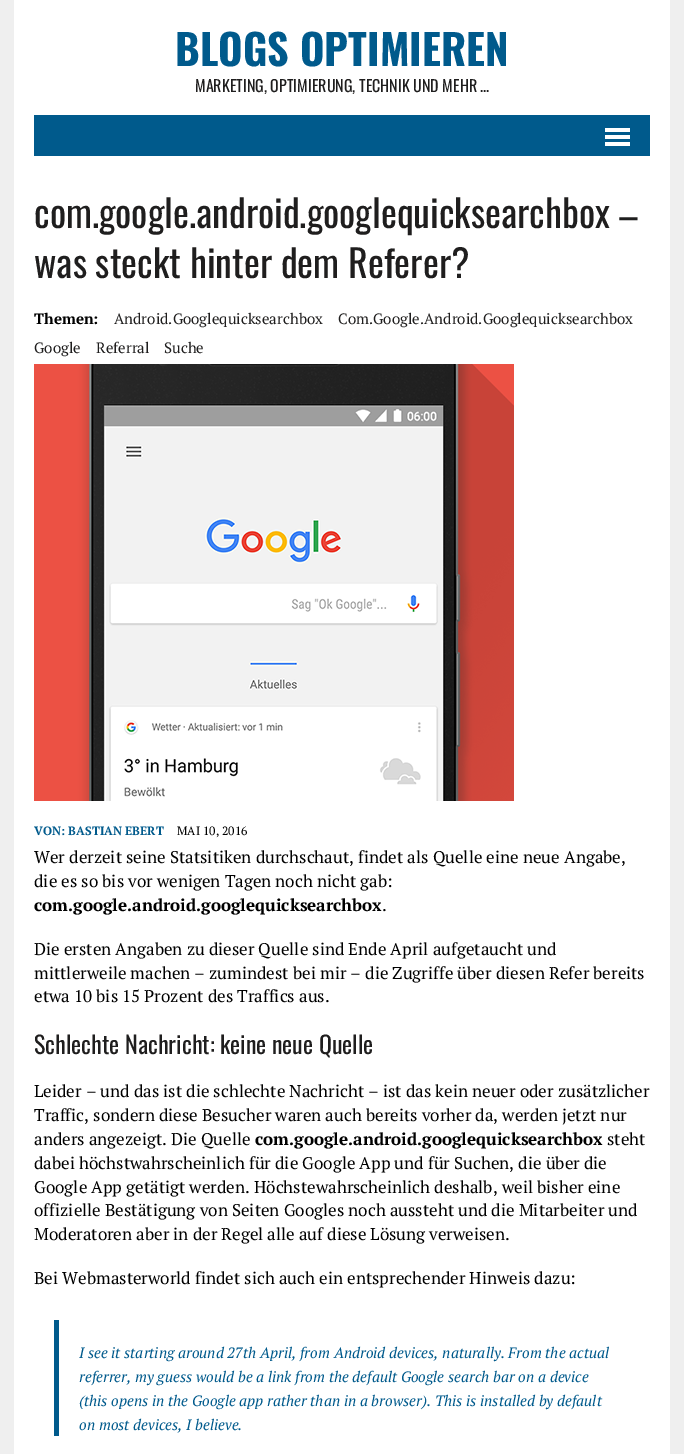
%!PS
<< /PageSize [684 1454] >> setpagedevice
/C { dup -16 bitshift 255 div exch dup -8 bitshift 255 and 255 div exch 255 and 255 div setrgbcolor } def
/F { [ exch dup neg 0 0 3 -1 roll 0 0 ] selectfont } def
/T { moveto show } def
/R { rectfill } def
/I { 5 dict begin { /h /w /y /x /name } { exch def } forall
  gsave x y translate w h scale
  w h 8 [w 0 0 h 0 0] name (r) file false 3 colorimage grestore end } def
0 1454 translate 1 -1 scale
4 setmiterlimit
16#EFEFEF C
0 0 684 1454 R
16#FFFFFF C
14 0 656 1454 R
/Oswald-Bold 42 F
16#005A8C C
(BLOGS OPTIMIEREN) 175 66 T
/Oswald-Regular 16 F
16#1F1E1E C
(MARKETING, OPTIMIERUNG, TECHNIK UND MEHR ...) 195 92 T
16#005A8C C
34 115 616 41 R
16#FFFFFF C
605 128 25 4 R
605 135 25 4 R
605 142 25 4 R
/Oswald-Regular 38 F
16#1F1E1E C
(com.google.android.googlequicksearchbox –) 34 228 T
(was steckt hinter dem Referer?) 34 278 T
/PTSerif-Bold 15 F
16#000000 C
(Themen:) 34 324 T
/PTSerif-Regular 15 F
16#1F1E1E C
(Android.Googlequicksearchbox) 114 324 T
(Com.Google.Android.Googlequicksearchbox) 338 324 T
(Google) 34 353 T
(Referral) 96 353 T
(Suche) 164 353 T
(1.rgb) 34 364 480 437 I
/PTSerif-Bold 12 F
16#005A8C C
(VON: BASTIAN EBERT) 34 835 T
/PTSerif-Regular 12 F
16#000000 C
(MAI 10, 2016) 177 835 T
/PTSerif-Regular 17 F
(Wer derzeit seine Statsitiken durchschaut, findet als Quelle eine neue Angabe,) 34 863 T
(die es so bis vor wenigen Tagen noch nicht gab:) 34 887 T
/PTSerif-Bold 17 F
(com.google.android.googlequicksearchbox) 34 911 T
/PTSerif-Regular 17 F
(.) 382 911 T
(Die ersten Angaben zu dieser Quelle sind Ende April aufgetaucht und) 34 955 T
(mittlerweile machen – zumindest bei mir – die Zugriffe über diesen Refer bereits) 34 979 T
(etwa 10 bis 15 Prozent des Traffics aus.) 34 1002 T
/Oswald-Regular 24 F
16#1F1E1E C
(Schlechte Nachricht: keine neue Quelle) 34 1054 T
/PTSerif-Regular 17 F
16#000000 C
(Leider – und das ist die schlechte Nachricht – ist das kein neuer oder zusätzlicher) 34 1097 T
(Traffic, sondern diese Besucher waren auch bereits vorher da, werden jetzt nur) 34 1121 T
(anders angezeigt. Die Quelle) 34 1145 T
/PTSerif-Bold 17 F
(com.google.android.googlequicksearchbox) 255 1145 T
/PTSerif-Regular 17 F
(steht) 607 1145 T
(dabei höchstwahrscheinlich für die Google App und für Suchen, die über die) 34 1169 T
(Google App getätigt werden. Höchstewahrscheinlich deshalb, weil bisher eine) 34 1193 T
(offizielle Bestätigung von Seiten Googles noch aussteht und die Mitarbeiter und) 34 1216 T
(Moderatoren aber in der Regel alle auf diese Lösung verweisen.) 34 1240 T
(Bei Webmasterworld findet sich auch ein entsprechender Hinweis dazu:) 34 1284 T
16#005A8C C
54 1320 5 116 R
/PTSerif-Italic 15 F
(I see it starting around 27th April, from Android devices, naturally. From the actual) 79 1358 T
(referrer, my guess would be a link from the default Google search bar on a device) 79 1382 T
(\(this opens in the Google app rather than in a browser\). This is installed by default) 79 1406 T
(on most devices, I believe.) 79 1430 T
showpage
